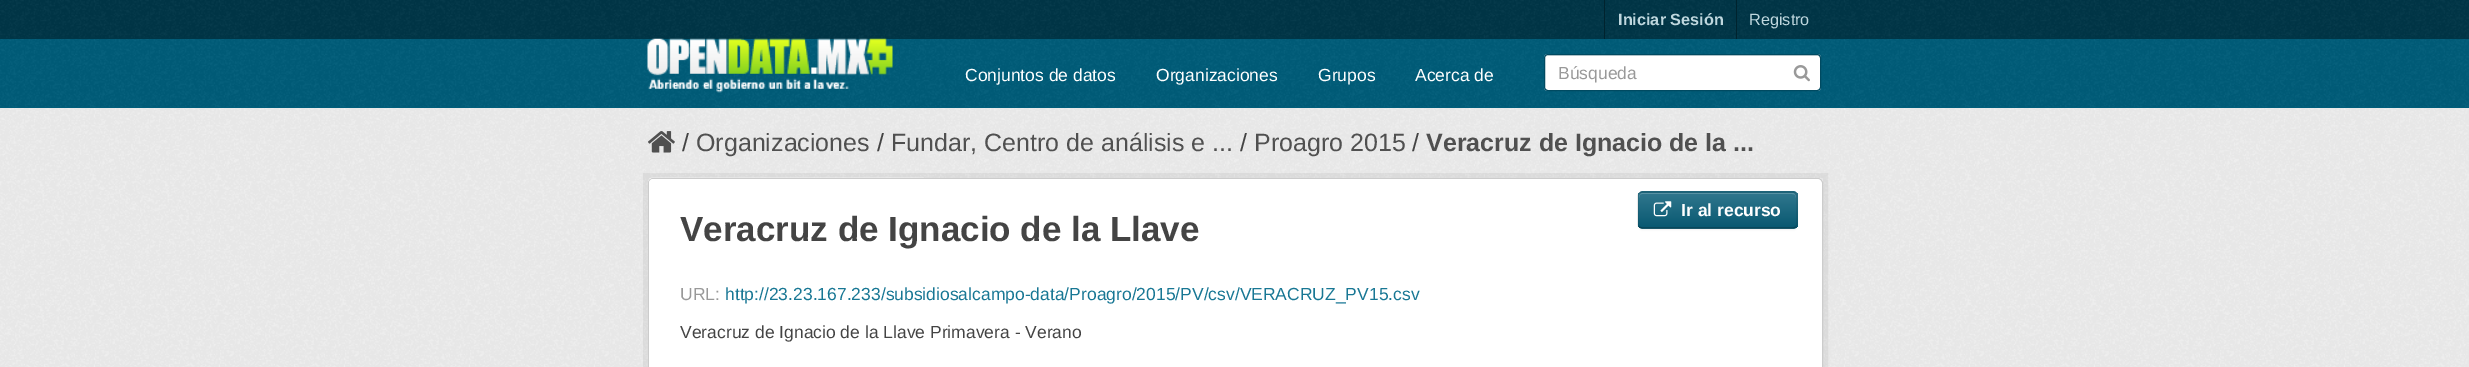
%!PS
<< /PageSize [2469 367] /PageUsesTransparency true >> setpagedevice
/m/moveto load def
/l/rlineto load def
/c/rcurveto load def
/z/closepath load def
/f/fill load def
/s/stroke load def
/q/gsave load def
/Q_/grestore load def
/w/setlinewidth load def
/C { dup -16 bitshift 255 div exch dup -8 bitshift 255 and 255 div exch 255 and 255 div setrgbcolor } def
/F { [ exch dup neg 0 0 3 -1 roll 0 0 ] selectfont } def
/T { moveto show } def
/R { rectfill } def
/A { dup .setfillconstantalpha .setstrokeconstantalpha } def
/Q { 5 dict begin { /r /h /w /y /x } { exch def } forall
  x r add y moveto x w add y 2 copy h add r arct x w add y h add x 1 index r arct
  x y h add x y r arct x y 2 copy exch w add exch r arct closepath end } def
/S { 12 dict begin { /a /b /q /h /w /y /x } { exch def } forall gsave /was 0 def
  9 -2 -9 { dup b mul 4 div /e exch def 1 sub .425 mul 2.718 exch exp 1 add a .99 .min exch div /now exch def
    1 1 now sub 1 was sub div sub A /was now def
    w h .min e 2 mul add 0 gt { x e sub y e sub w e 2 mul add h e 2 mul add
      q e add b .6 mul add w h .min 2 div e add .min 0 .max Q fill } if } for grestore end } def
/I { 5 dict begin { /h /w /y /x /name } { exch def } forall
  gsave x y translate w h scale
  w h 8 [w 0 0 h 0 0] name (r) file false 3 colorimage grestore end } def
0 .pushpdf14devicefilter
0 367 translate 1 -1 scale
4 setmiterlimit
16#003647 C
0 0 2469 367 R
(1.rgb) 0 0 2469 38 I
16#00232E C
1604 0 1 39 R
/LiberationSans-Bold 16.25 F
16#BFD7DE C
(Iniciar Sesión) 1618 25 T
16#00232E C
1736 0 1 39 R
/LiberationSans-Regular 16.25 F
16#BFD7DE C
(Registro) 1749 25 T
16#005D7A C
0 39 2469 69 R
(2.rgb) 0 39 2469 68 I
(3.rgb) 647 38 246 55 I
/LiberationSans-Regular 17.5 F
16#FFFFFF C
(Conjuntos de datos) 965 81 T
(Organizaciones) 1156 81 T
(Grupos) 1318 81 T
(Acerca de) 1415 81 T
1544 54 277 37 4 Q f
16#ECECEC C
1548 56 m 270 0 l 1 0 2 1 2 3 c 0 -1 l 0 -2 -1 -3 -2 -3 c -270 0 l -2 0 -3 1 -3 3 c 0 1 l 0 -2 1 -3 3 -3 c z f
16#004A61 C
1544.5 54.5 276 36 3.5 Q s
16#999999 C
(Búsqueda) 1558 79 T
(4.rgb) 1793 65 17 17 I
16#EEEEEE C
0 108 2469 259 R
(5.rgb) 0 108 2469 259 I
(6.rgb) 648 131 27 22 I
/LiberationSans-Regular 25 F
16#444444 C
(/) 682 151 T
16#505050 C
(Organizaciones) 696 151 T
16#444444 C
(/) 877 151 T
16#505050 C
(Fundar, Centro de análisis e ...) 891 151 T
16#444444 C
(/) 1240 151 T
16#505050 C
(Proagro 2015) 1254 151 T
16#444444 C
(/) 1412 151 T
/LiberationSans-Bold 25 F
16#505050 C
(Veracruz de Ignacio de la ...) 1426 151 T
0.05 A
16#000000 C
5 w
645.5 175.5 1180 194 rectstroke
1 A
16#FFFFFF C
648 178 1175 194 5 Q f
(7.rgb) 648 177 277 6 I
16#CCCCCC C
1 w
648.5 178.5 1174 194 4.5 Q s
16#FFFFFF C
653 179 m 1164 0 l 2 0 4 2 4 4 c 0 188 l -1172 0 l 0 -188 l 0 -2 2 -4 4 -4 c z f
16#000000 C
1638 193 160 37 5 1 .05 S
16#206B82 C
1638 191 160 38 5 Q f
q
1638 191 160 38 5 Q clip newpath
q 1638 193 m 160 0 l 0 35 l -160 0 l z clip newpath
<< /ShadingType 2 /ColorSpace /DeviceRGB /Coords [1718 193 1718 228] /Extend [true true] /Function << /FunctionType 2 /Domain [0 1] /C0 [.188 .467 .553] /C1 [.031 .345 .443] /N 1 >> >> shfill Q_
Q_
16#5992A4 C
1642 194 m 150 0 l 3 0 4 1 4 4 c 0 -2 -1 -4 -3 -5 c -151 0 l -2 1 -3 3 -3 5 c 0 -3 1 -4 3 -4 c z f
0.25 A
16#000000 C
1.2 w
1795.5 227 m -.5 .5 -2 1 -3 1 c -150 0 l -1 0 -2.5 -.5 -3 -1 c s
0.1 A
1639.5 227 m -1 -1 -1.5 -2 -1.5 -3 c 0 -28 l 0 -1 .5 -2 1.5 -3 c .5 -.5 2 -1 3 -1 c 150 0 l 1 0 2.5 .5 3 1 c 1 1 1.5 2 1.5 3 c 0 28 l 0 1 -.5 2 -1.5 3 c s
1 A
(8.rgb) 1653 201 19 16 I
/LiberationSans-Bold 17.5 F
16#FFFFFF C
(Ir al recurso) 1681 216 T
/LiberationSans-Bold 35 F
16#444444 C
(Veracruz de Ignacio de la Llave) 680 241 T
/LiberationSans-Regular 17.5 F
16#999999 C
(URL:) 680 300 T
16#187794 C
(http://23.23.167.233/subsidiosalcampo-data/Proagro/2015/PV/csv/VERACRUZ_PV15.csv) 725 300 T
16#444444 C
(Veracruz de Ignacio de la Llave Primavera - Verano) 680 338 T
.poppdf14devicefilter showpage
